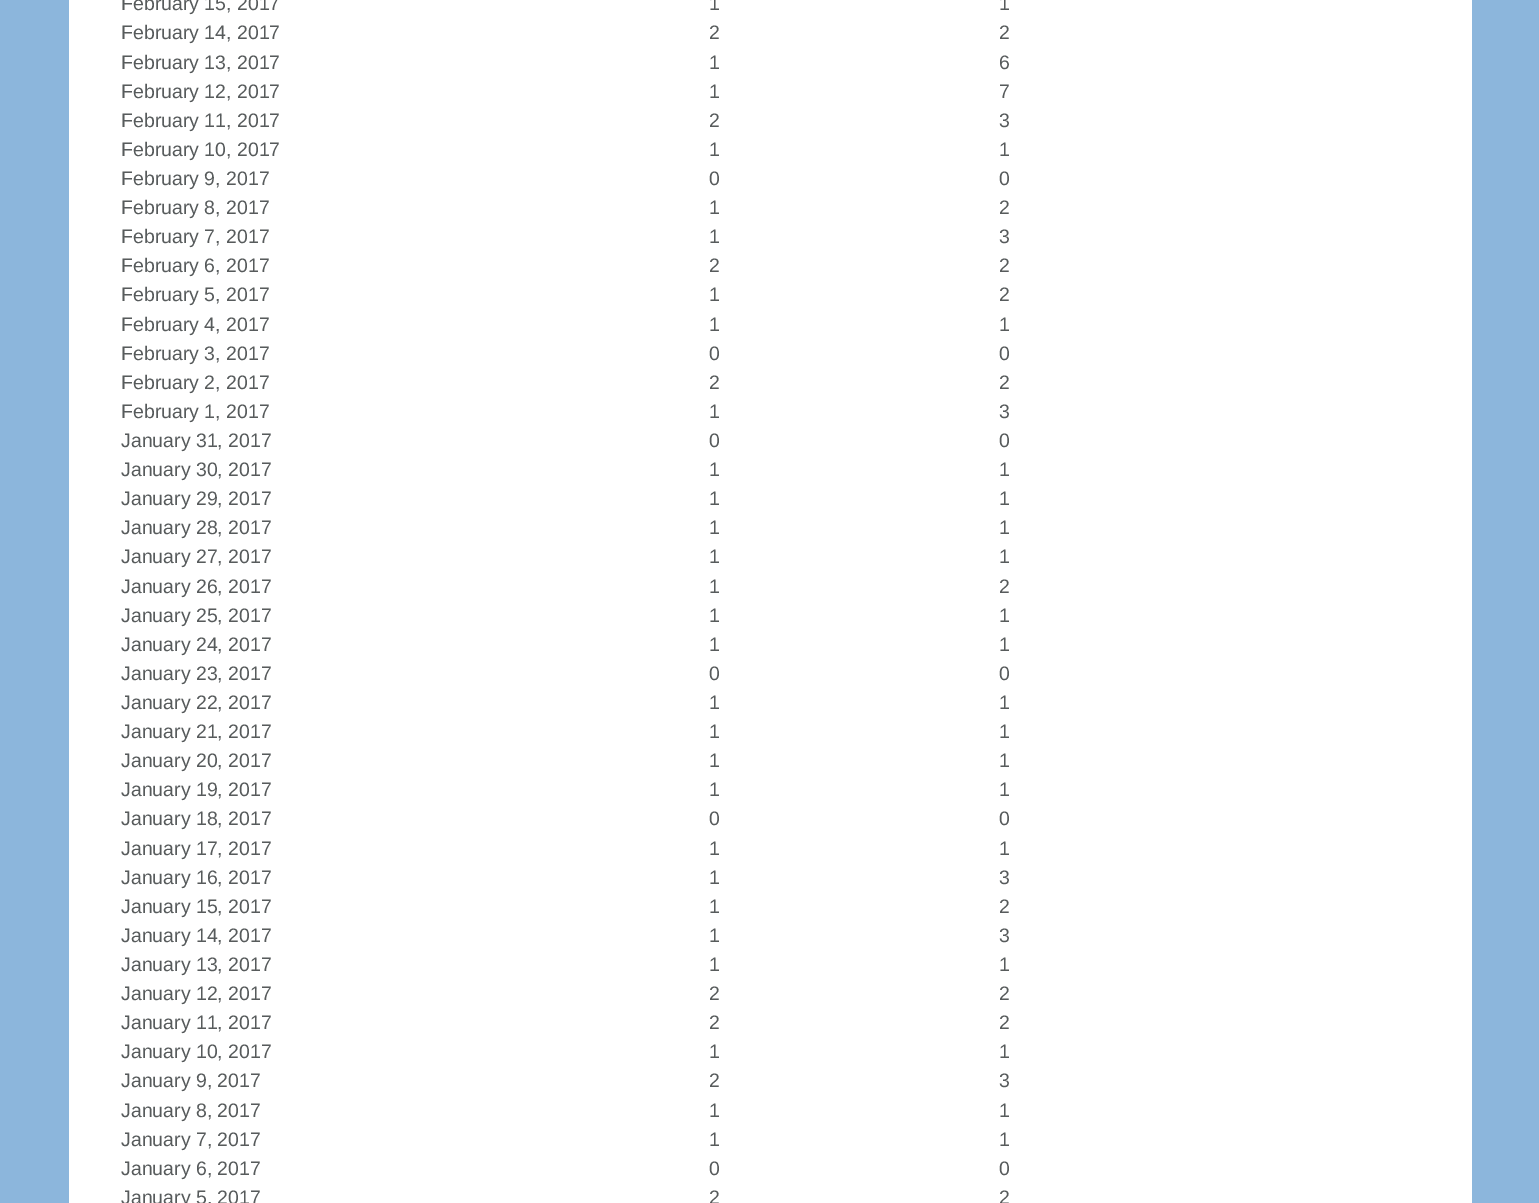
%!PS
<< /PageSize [1539 1203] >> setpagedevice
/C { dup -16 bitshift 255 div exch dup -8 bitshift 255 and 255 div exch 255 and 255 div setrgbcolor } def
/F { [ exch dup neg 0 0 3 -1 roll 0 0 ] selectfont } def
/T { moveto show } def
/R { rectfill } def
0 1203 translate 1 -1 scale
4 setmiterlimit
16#8CB6DC C
0 0 1539 1203 R
16#FFFFFF C
69 0 1403 1203 R
/LiberationSans-Regular 19.5 F
16#575B5C C
(February 15, 2017) 121 10 T
(1) 709 10 T
(1) 999 10 T
(February 14, 2017) 121 39 T
(2) 709 39 T
(2) 999 39 T
(February 13, 2017) 121 69 T
(1) 709 69 T
(6) 999 69 T
(February 12, 2017) 121 98 T
(1) 709 98 T
(7) 999 98 T
(February 11, 2017) 121 127 T
(2) 709 127 T
(3) 999 127 T
(February 10, 2017) 121 156 T
(1) 709 156 T
(1) 999 156 T
(February 9, 2017) 121 185 T
(0) 709 185 T
(0) 999 185 T
(February 8, 2017) 121 214 T
(1) 709 214 T
(2) 999 214 T
(February 7, 2017) 121 243 T
(1) 709 243 T
(3) 999 243 T
(February 6, 2017) 121 272 T
(2) 709 272 T
(2) 999 272 T
(February 5, 2017) 121 301 T
(1) 709 301 T
(2) 999 301 T
(February 4, 2017) 121 331 T
(1) 709 331 T
(1) 999 331 T
(February 3, 2017) 121 360 T
(0) 709 360 T
(0) 999 360 T
(February 2, 2017) 121 389 T
(2) 709 389 T
(2) 999 389 T
(February 1, 2017) 121 418 T
(1) 709 418 T
(3) 999 418 T
(January 31, 2017) 121 447 T
(0) 709 447 T
(0) 999 447 T
(January 30, 2017) 121 476 T
(1) 709 476 T
(1) 999 476 T
(January 29, 2017) 121 505 T
(1) 709 505 T
(1) 999 505 T
(January 28, 2017) 121 534 T
(1) 709 534 T
(1) 999 534 T
(January 27, 2017) 121 563 T
(1) 709 563 T
(1) 999 563 T
(January 26, 2017) 121 593 T
(1) 709 593 T
(2) 999 593 T
(January 25, 2017) 121 622 T
(1) 709 622 T
(1) 999 622 T
(January 24, 2017) 121 651 T
(1) 709 651 T
(1) 999 651 T
(January 23, 2017) 121 680 T
(0) 709 680 T
(0) 999 680 T
(January 22, 2017) 121 709 T
(1) 709 709 T
(1) 999 709 T
(January 21, 2017) 121 738 T
(1) 709 738 T
(1) 999 738 T
(January 20, 2017) 121 767 T
(1) 709 767 T
(1) 999 767 T
(January 19, 2017) 121 796 T
(1) 709 796 T
(1) 999 796 T
(January 18, 2017) 121 825 T
(0) 709 825 T
(0) 999 825 T
(January 17, 2017) 121 855 T
(1) 709 855 T
(1) 999 855 T
(January 16, 2017) 121 884 T
(1) 709 884 T
(3) 999 884 T
(January 15, 2017) 121 913 T
(1) 709 913 T
(2) 999 913 T
(January 14, 2017) 121 942 T
(1) 709 942 T
(3) 999 942 T
(January 13, 2017) 121 971 T
(1) 709 971 T
(1) 999 971 T
(January 12, 2017) 121 1000 T
(2) 709 1000 T
(2) 999 1000 T
(January 11, 2017) 121 1029 T
(2) 709 1029 T
(2) 999 1029 T
(January 10, 2017) 121 1058 T
(1) 709 1058 T
(1) 999 1058 T
(January 9, 2017) 121 1087 T
(2) 709 1087 T
(3) 999 1087 T
(January 8, 2017) 121 1117 T
(1) 709 1117 T
(1) 999 1117 T
(January 7, 2017) 121 1146 T
(1) 709 1146 T
(1) 999 1146 T
(January 6, 2017) 121 1175 T
(0) 709 1175 T
(0) 999 1175 T
(January 5, 2017) 121 1204 T
(2) 709 1204 T
(2) 999 1204 T
showpage
